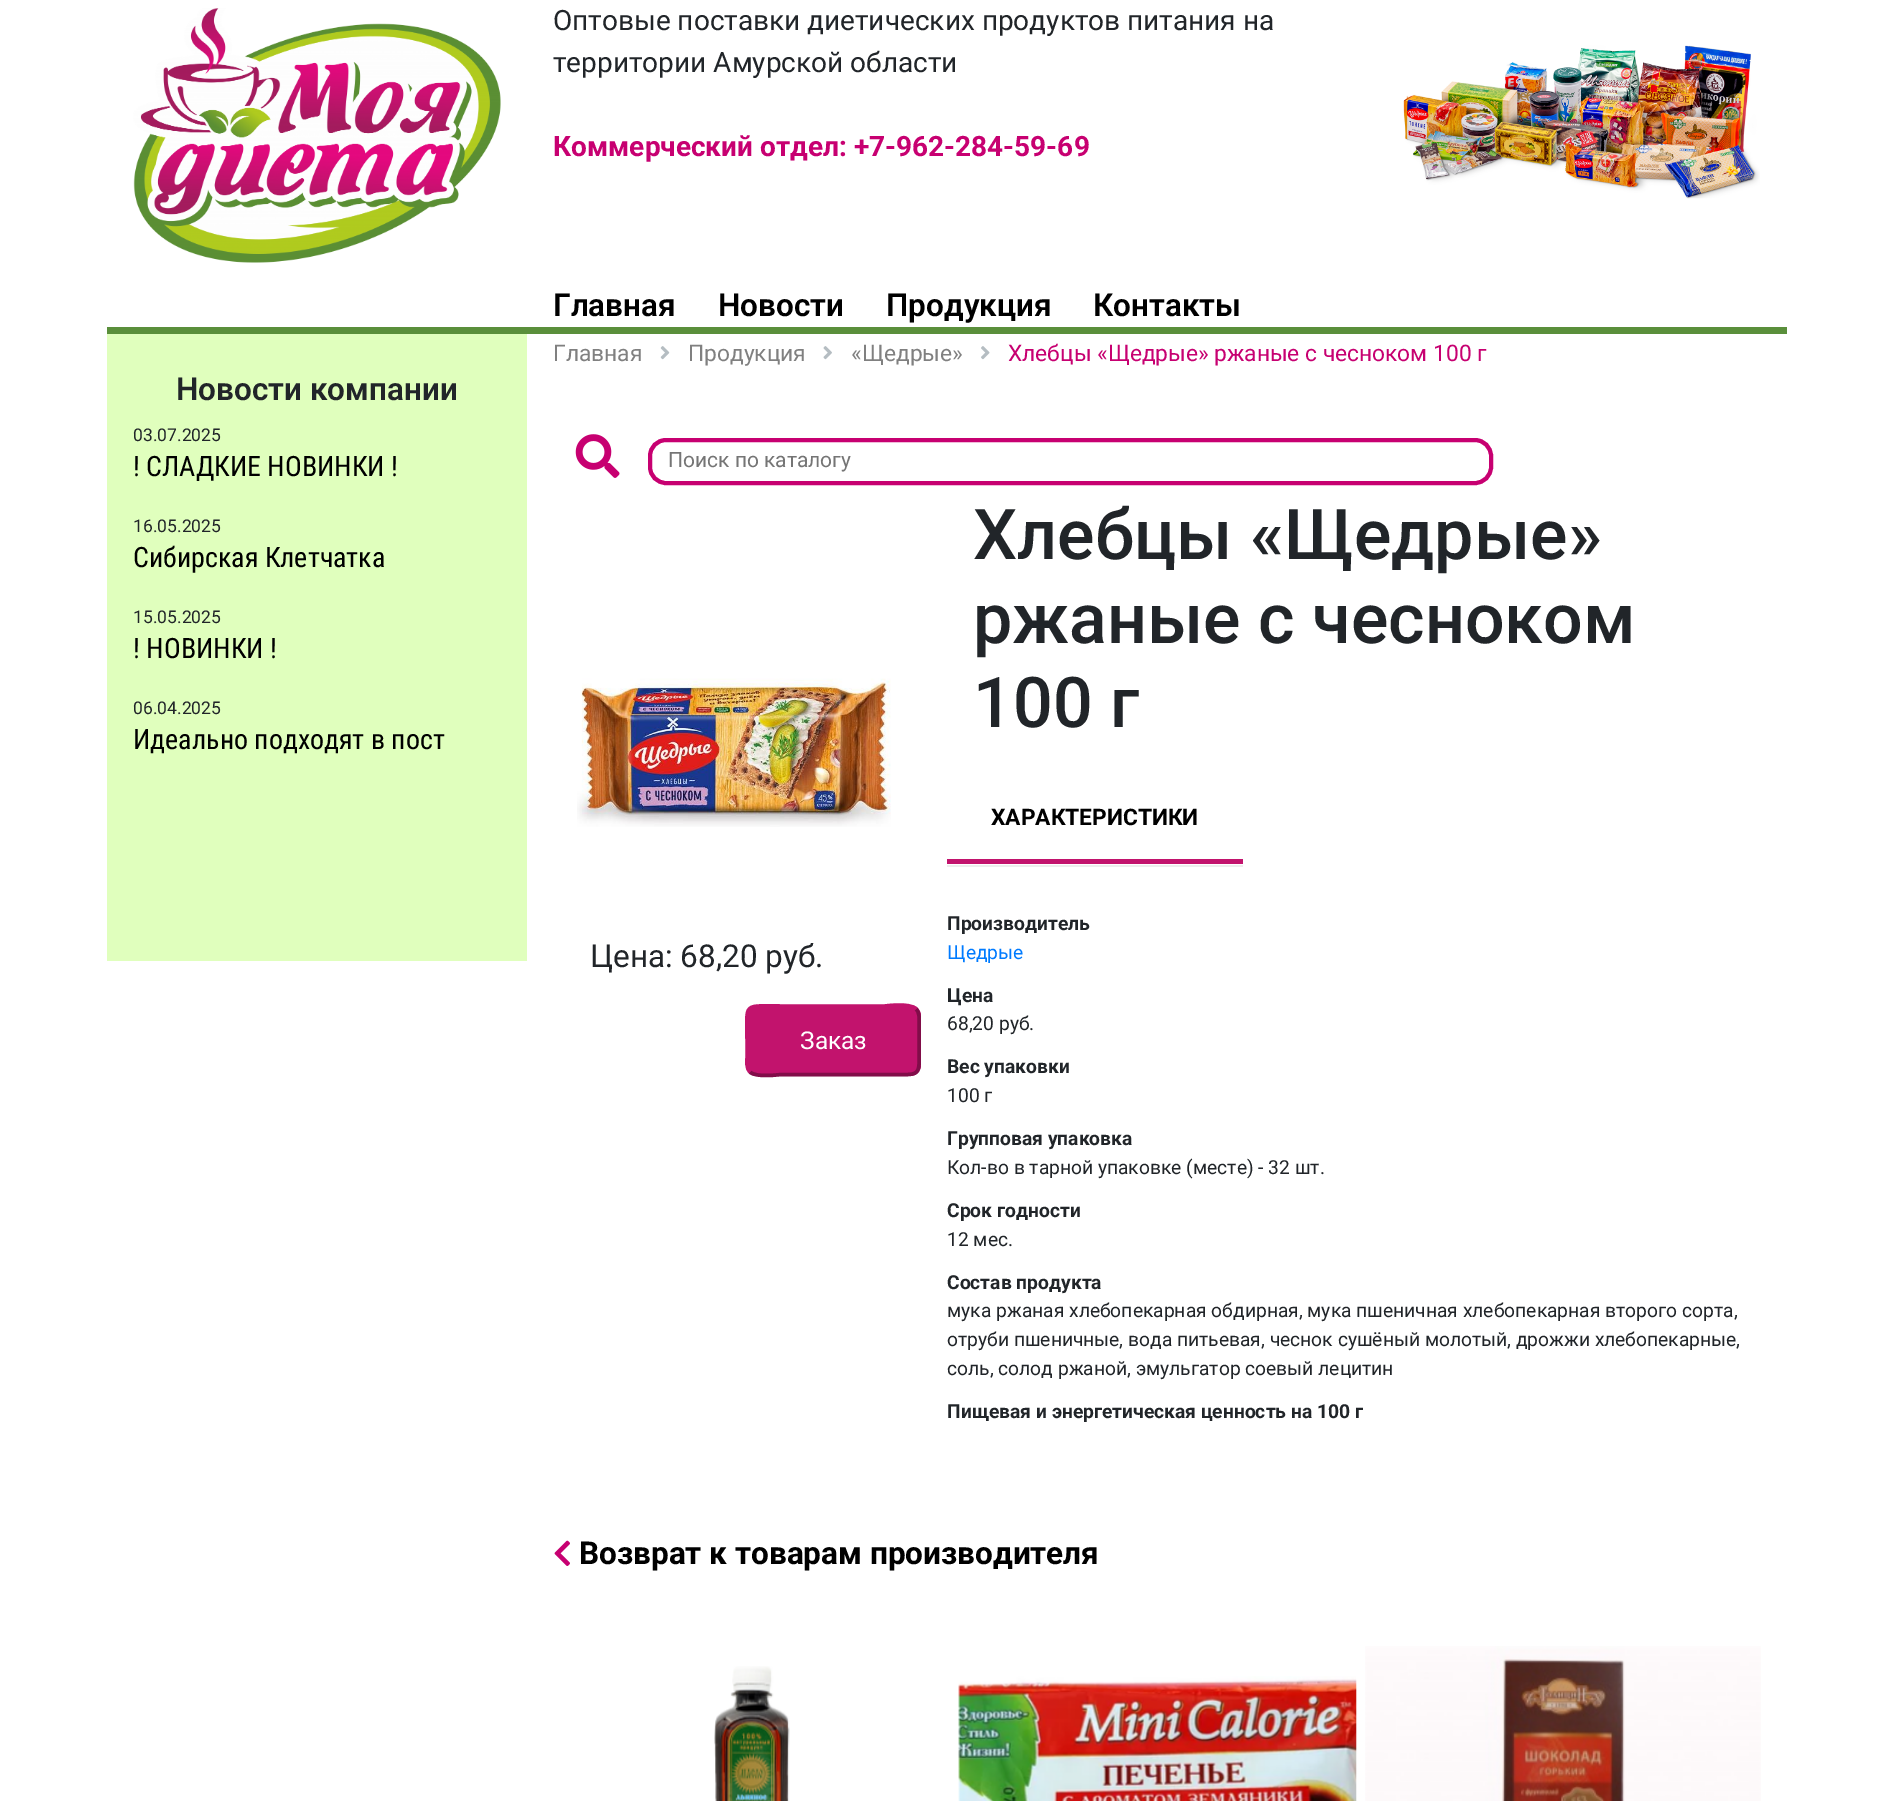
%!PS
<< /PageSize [1892 1801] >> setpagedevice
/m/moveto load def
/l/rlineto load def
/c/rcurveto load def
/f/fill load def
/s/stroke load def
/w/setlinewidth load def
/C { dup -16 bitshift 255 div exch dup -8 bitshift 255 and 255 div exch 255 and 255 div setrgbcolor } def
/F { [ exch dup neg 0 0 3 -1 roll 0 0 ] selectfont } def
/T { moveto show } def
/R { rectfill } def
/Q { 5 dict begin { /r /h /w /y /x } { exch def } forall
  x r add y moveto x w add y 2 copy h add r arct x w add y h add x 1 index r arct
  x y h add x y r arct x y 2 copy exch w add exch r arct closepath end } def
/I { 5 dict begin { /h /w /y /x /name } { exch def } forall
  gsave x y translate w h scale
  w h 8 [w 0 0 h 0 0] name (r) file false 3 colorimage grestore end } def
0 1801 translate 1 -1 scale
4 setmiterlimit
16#FFFFFF C
0 0 1892 1801 R
16#5A8F3B C
107 327 1680 7 R
(1.rgb) 133 8 368 255 I
/Roboto-Regular 28 F
16#212529 C
(Оптовые поставки диетических продуктов питания на) 553 30 T
(территории Амурской области) 553 72 T
/Roboto-Bold 28 F
16#C70071 C
(Коммерческий отдел: +7-962-284-59-69) 553 156 T
(2.rgb) 1403 45 357 154 I
/Roboto-SemiBold 31.5 F
16#000000 C
(Главная) 553 316 T
(Новости) 718 316 T
(Продукция) 886 316 T
(Контакты) 1093 316 T
16#E0FFBD C
107 334 420 627 R
16#212529 C
(Новости компании) 176 400 T
/Roboto-Regular 17.5 F
(03.07.2025) 133 441 T
/RobotoCondensed-Regular 28 F
16#000000 C
(! СЛАДКИЕ НОВИНКИ !) 133 476 T
/Roboto-Regular 17.5 F
16#212529 C
(16.05.2025) 133 532 T
/RobotoCondensed-Regular 28 F
16#000000 C
(Сибирская Клетчатка) 133 567 T
/Roboto-Regular 17.5 F
16#212529 C
(15.05.2025) 133 623 T
/RobotoCondensed-Regular 28 F
16#000000 C
(! НОВИНКИ !) 133 658 T
/Roboto-Regular 17.5 F
16#212529 C
(06.04.2025) 133 714 T
/RobotoCondensed-Regular 28 F
16#000000 C
(Идеально подходят в пост) 133 749 T
/Roboto-Regular 22.75 F
16#808080 C
(Главная) 553 361 T
(3.rgb) 660 346 10 14 I
(Продукция) 688 361 T
(4.rgb) 823 346 9 14 I
(«Щедрые») 851 361 T
(5.rgb) 981 346 9 14 I
16#C70071 C
(Хлебцы «Щедрые» ржаные с чесноком 100 г) 1008 361 T
(6.rgb) 575 434 45 44 I
4 w
650 440 841 43 16 Q s
/Roboto-Regular 21 F
16#757575 C
(Поиск по каталогу) 668 467 T
(7.rgb) 577 678 314 149 I
/Roboto-Regular 31.5 F
16#212529 C
(Цена: 68,20 руб.) 590 967 T
16#C2136D C
746 1005 175 71 11 Q f
16#810D49 C
3.5 w
916 1009 m 4 3.5 3 10 3 14.5 c 0 17 l 0 38.5 5 34 -34.5 34 c -103 0 l -1.5 0 -25.5 3.5 -31.5 -2.5 c s
16#C2136D C
750 1072 m -4 -4 -3 -10 -3 -14.5 c 0 -17 l 0 -38.5 -5 -34.5 34.5 -34.5 c 103 0 l 1.5 0 25.5 -3.5 31.5 3 c s
/Roboto-Regular 24.5 F
16#FFFFFF C
(Заказ) 800 1049 T
/Roboto-Medium 70 F
16#212529 C
(Хлебцы «Щедрые») 973 559 T
(ржаные с чесноком) 973 643 T
(100 г) 973 727 T
16#EDEDED C
947 865 296 2 R
/Roboto-Bold 22.75 F
16#000000 C
(ХАРАКТЕРИСТИКИ) 991 825 T
16#C2136D C
947 859 296 5 R
/Roboto-Bold 19.25 F
16#212529 C
(Производитель) 947 930 T
/Roboto-Regular 19.25 F
16#007BFF C
(Щедрые) 947 959 T
/Roboto-Bold 19.25 F
16#212529 C
(Цена) 947 1002 T
/Roboto-Regular 19.25 F
(68,20 руб.) 947 1030 T
/Roboto-Bold 19.25 F
(Вес упаковки) 947 1073 T
/Roboto-Regular 19.25 F
(100 г) 947 1102 T
/Roboto-Bold 19.25 F
(Групповая упаковка) 947 1145 T
/Roboto-Regular 19.25 F
(Кол-во в тарной упаковке \(месте\) - 32 шт.) 947 1174 T
/Roboto-Bold 19.25 F
(Срок годности) 947 1217 T
/Roboto-Regular 19.25 F
(12 мес.) 947 1246 T
/Roboto-Bold 19.25 F
(Состав продукта) 947 1289 T
/Roboto-Regular 19.25 F
(мука ржаная хлебопекарная обдирная, мука пшеничная хлебопекарная второго сорта,) 947 1317 T
(отруби пшеничные, вода питьевая, чеснок сушёный молотый, дрожжи хлебопекарные,) 947 1346 T
(соль, солод ржаной, эмульгатор соевый лецитин) 947 1375 T
/Roboto-Bold 19.25 F
(Пищевая и энергетическая ценность на 100 г) 947 1418 T
(8.rgb) 554 1540 16 26 I
/Roboto-Bold 31.5 F
16#000000 C
(Возврат к товарам производителя) 579 1564 T
(9.rgb) 714 1666 76 135 I
(10.rgb) 958 1676 399 125 I
(11.rgb) 1365 1646 396 155 I
showpage
